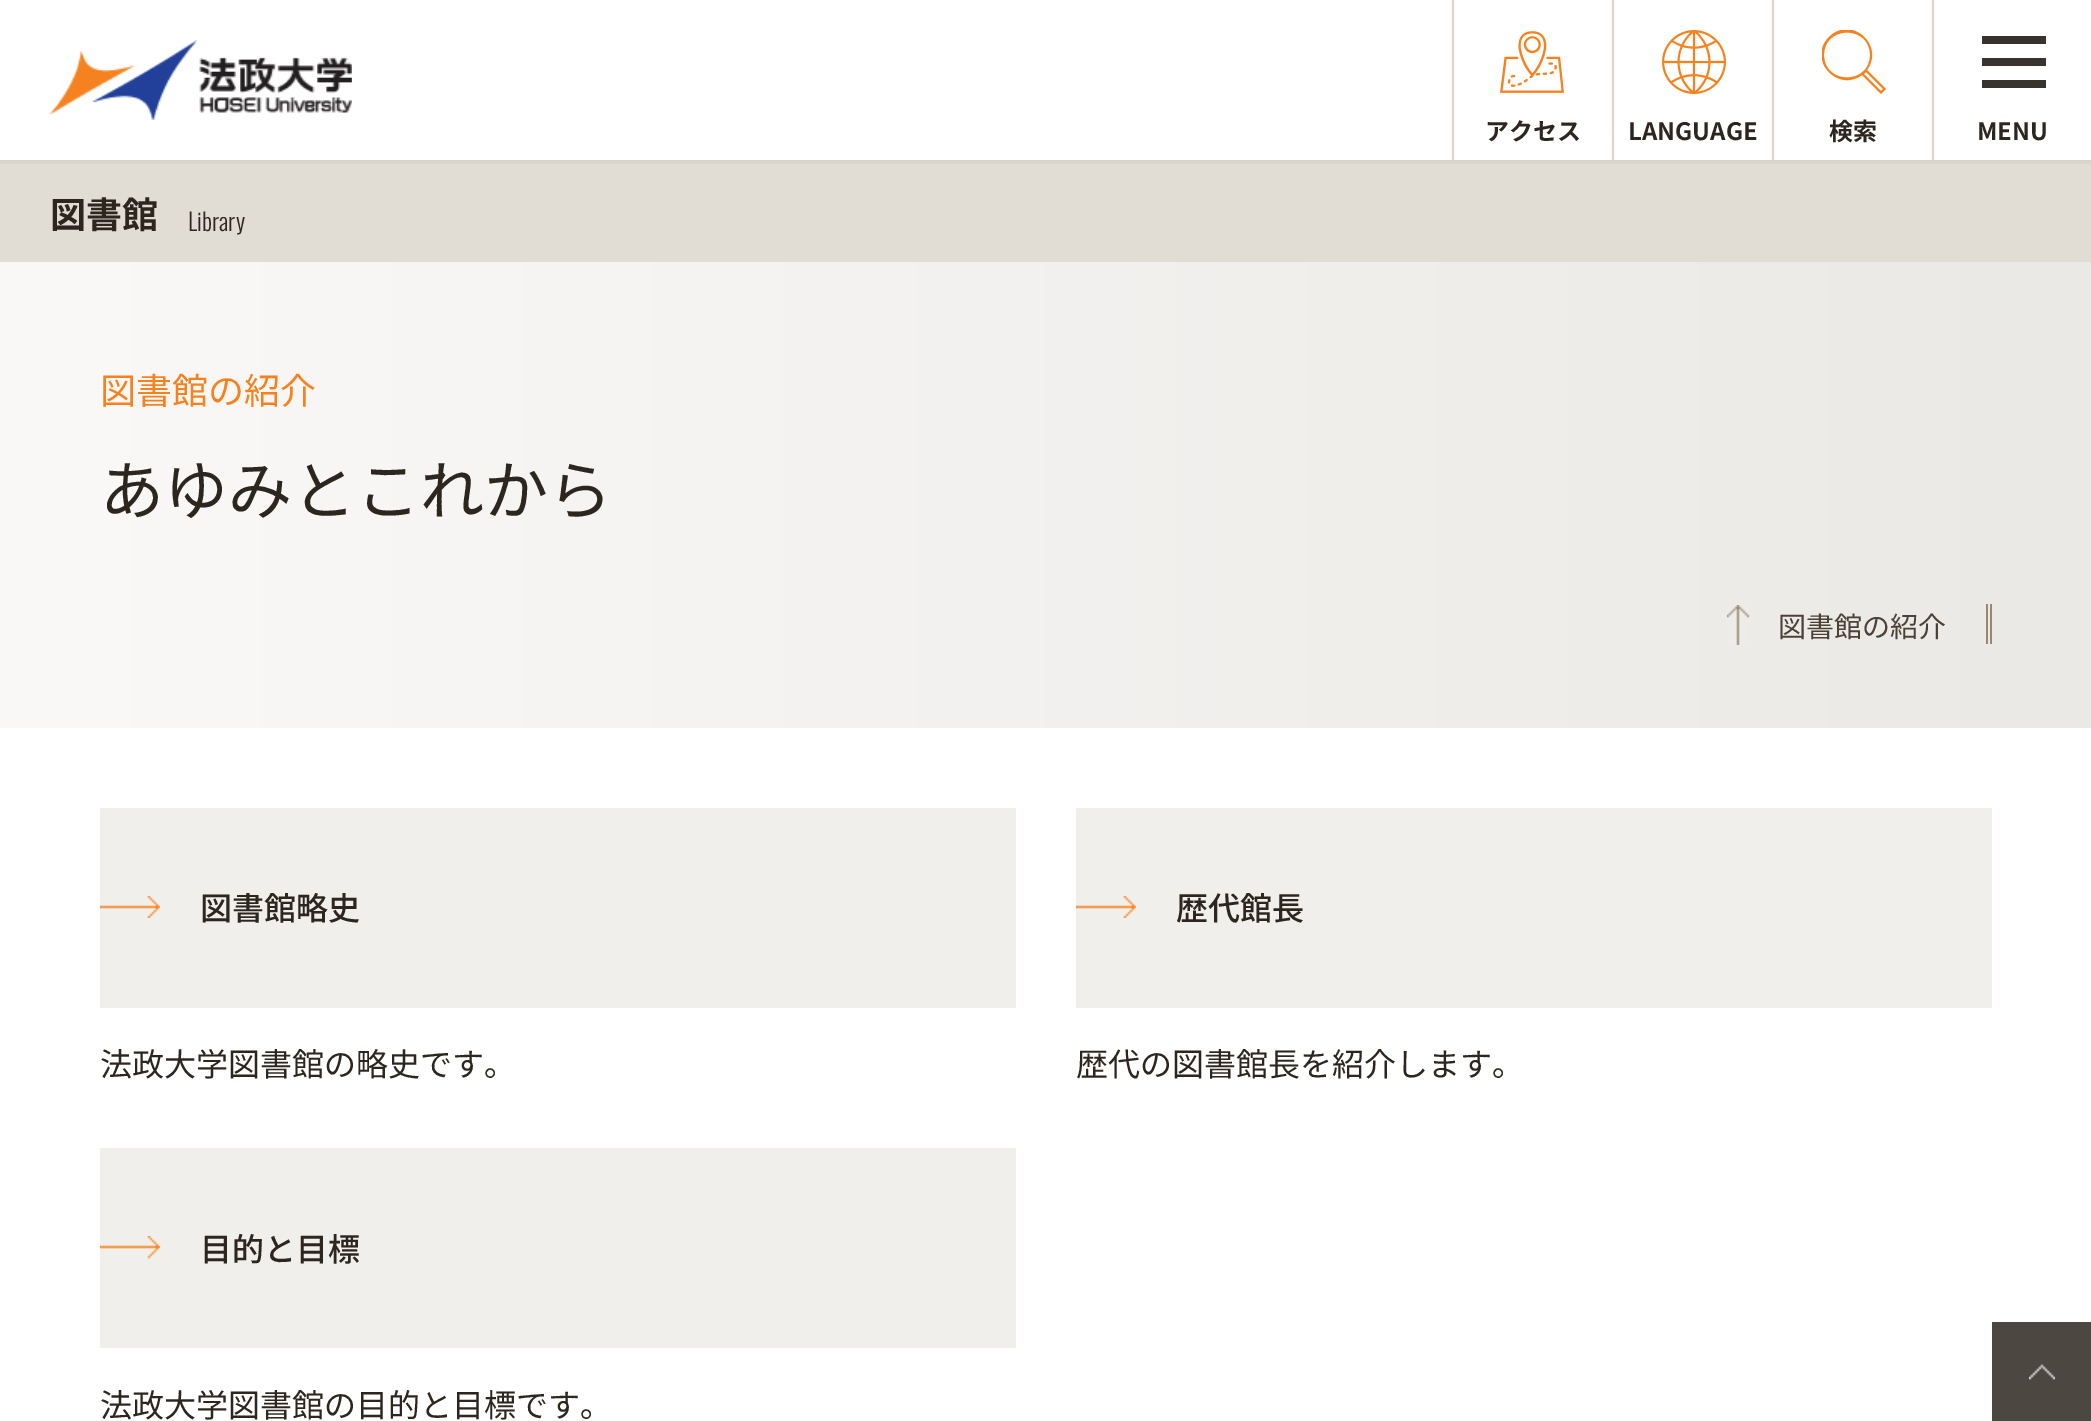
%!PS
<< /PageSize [2091 1421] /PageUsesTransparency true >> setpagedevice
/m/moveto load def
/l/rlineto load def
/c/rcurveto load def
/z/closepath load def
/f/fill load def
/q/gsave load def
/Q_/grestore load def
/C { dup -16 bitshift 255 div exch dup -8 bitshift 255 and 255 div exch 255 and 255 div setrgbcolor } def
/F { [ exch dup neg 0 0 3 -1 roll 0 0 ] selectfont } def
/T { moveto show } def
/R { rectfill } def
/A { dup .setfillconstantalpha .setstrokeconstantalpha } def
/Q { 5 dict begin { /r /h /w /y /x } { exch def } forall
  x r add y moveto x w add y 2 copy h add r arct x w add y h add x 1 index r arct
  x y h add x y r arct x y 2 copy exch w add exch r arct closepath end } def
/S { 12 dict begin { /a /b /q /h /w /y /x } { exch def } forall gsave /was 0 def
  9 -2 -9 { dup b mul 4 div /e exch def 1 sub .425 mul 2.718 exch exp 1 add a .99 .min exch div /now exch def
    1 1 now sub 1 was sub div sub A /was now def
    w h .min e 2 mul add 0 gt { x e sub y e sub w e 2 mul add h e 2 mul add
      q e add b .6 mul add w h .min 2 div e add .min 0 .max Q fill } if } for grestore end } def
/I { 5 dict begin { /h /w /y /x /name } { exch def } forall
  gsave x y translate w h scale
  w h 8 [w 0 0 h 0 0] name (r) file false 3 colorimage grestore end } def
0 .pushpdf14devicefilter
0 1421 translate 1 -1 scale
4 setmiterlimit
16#FFFFFF C
0 0 2091 1421 R
16#E1DDD5 C
0 160 2091 102 R
q
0 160 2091 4 rectclip
16#000000 C
0 0 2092 160 0 5 .1 S
Q_
(1.rgb) 50 40 302 80 I
16#DED3C5 C
1452 0 2 160 R
(2.rgb) 1500 31 64 62 I
/NotoSansJP-Bold 24 F
16#2C261F C
(アクセス) 1485 140 T
16#DED3C5 C
1612 0 2 160 R
(3.rgb) 1662 30 64 64 I
16#2C261F C
(LANGUAGE) 1628 140 T
16#DED3C5 C
1772 0 2 160 R
q
1822 30 64 64 rectclip
16#F5821F C
1886 89 m -19 -19 l 18 -25 -16 -55 -38 -33 c -22 22 8 56 33 38 c 19 19 l z 1824 55 m 0 -30 46 -30 46 0 c 0 30 -46 30 -46 0 c z 1865 73 m 1 -1 l 17 17 l -2 2 l -17 -17 l z f
Q_
16#2C261F C
(検索) 1829 140 T
16#DED3C5 C
1932 0 2 160 R
16#38332C C
1982 36 64 8 R
1982 58 64 8 R
1982 80 64 8 R
16#2C261F C
(MENU) 1977 140 T
/NotoSansJP-Bold 36 F
(図書館) 50 228 T
/Oswald-Light 24 F
(Library) 188 231 T
q 0 262 m 2091 0 l 0 466 l -2091 0 l z clip newpath
<< /ShadingType 2 /ColorSpace /DeviceRGB /Coords [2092 494 0 494] /Extend [true true] /Function << /FunctionType 2 /Domain [0 1] /C0 [.922 .914 .898] /C1 [.98 .976 .973] /N 1 >> >> shfill Q_
/NotoSansJP-Regular 36 F
16#F5821F C
(図書館の紹介) 100 404 T
/NotoSansJP-Regular 64 F
16#2C261F C
(あゆみとこれから) 100 514 T
(4.rgb) 1727 605 22 40 I
/NotoSansJP-Regular 28 F
16#4B4136 C
(図書館の紹介) 1778 637 T
16#97886F C
1986 604 2 40 R
1990 604 2 40 R
16#F1EFEB C
100 808 916 200 R
(5.rgb) 100 896 60 22 I
/NotoSansJP-Medium 32 F
16#2C261F C
(図書館略史) 200 920 T
/NotoSansJP-Regular 32 F
(法政大学図書館の略史です。) 100 1076 T
16#F1EFEB C
1076 808 916 200 R
(5.rgb) 1076 896 60 22 I
/NotoSansJP-Medium 32 F
16#2C261F C
(歴代館長) 1176 920 T
/NotoSansJP-Regular 32 F
(歴代の図書館長を紹介します。) 1076 1076 T
16#F1EFEB C
100 1148 916 200 R
(6.rgb) 100 1236 60 23 I
/NotoSansJP-Medium 32 F
16#2C261F C
(目的と目標) 200 1261 T
/NotoSansJP-Regular 32 F
(法政大学図書館の目的と目標です。) 100 1417 T
16#4C4741 C
1992 1322 99 99 R
(7.rgb) 2029 1364 26 16 I
.poppdf14devicefilter showpage
